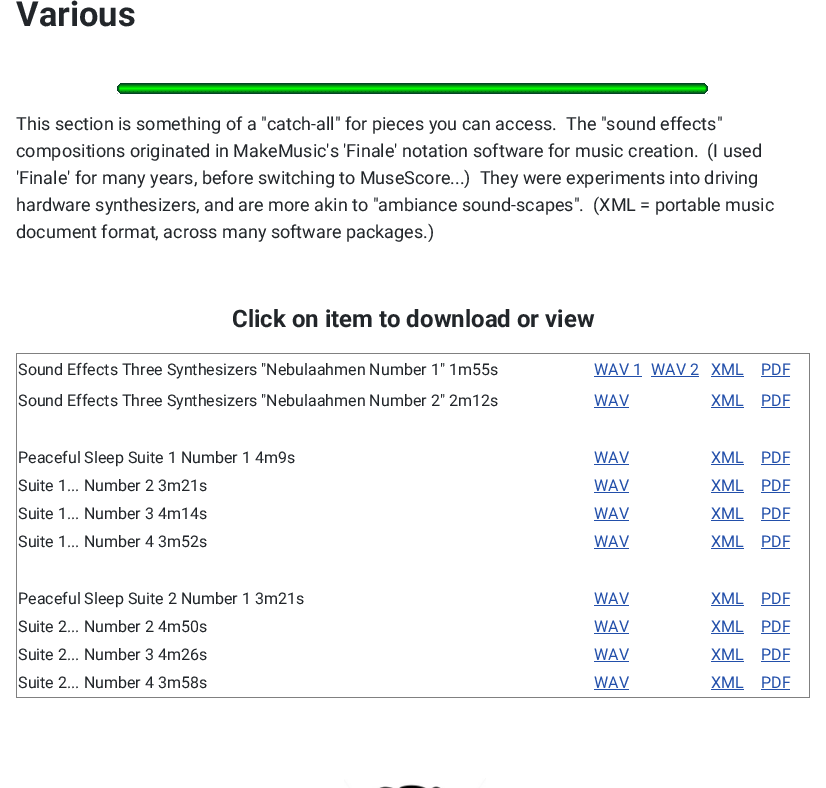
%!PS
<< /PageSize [826 788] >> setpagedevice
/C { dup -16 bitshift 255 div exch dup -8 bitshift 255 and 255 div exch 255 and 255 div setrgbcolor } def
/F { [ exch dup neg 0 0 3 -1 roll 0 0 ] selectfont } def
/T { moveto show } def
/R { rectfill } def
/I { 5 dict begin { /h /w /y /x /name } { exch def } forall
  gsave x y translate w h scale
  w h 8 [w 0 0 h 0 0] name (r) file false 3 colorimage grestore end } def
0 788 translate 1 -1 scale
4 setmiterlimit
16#FFFFFF C
0 0 826 788 R
/Roboto-Bold 34.5 F
16#22262A C
(Various) 16 26 T
(1.rgb) 117 83 591 11 I
/Roboto-Regular 18 F
(This section is something of a "catch-all" for pieces you can access.  The "sound effects") 16 130 T
(compositions originated in MakeMusic's 'Finale' notation software for music creation.  \(I used) 16 157 T
('Finale' for many years, before switching to MuseScore...\)  They were experiments into driving) 16 184 T
(hardware synthesizers, and are more akin to "ambiance sound-scapes".  \(XML = portable music) 16 211 T
(document format, across many software packages.\)) 16 238 T
/Roboto-Bold 24 F
(Click on item to download or view) 232 327 T
16#808080 C
16 353 794 1 R
809 353 1 345 R
16 697 794 1 R
16 353 1 345 R
/Roboto-Regular 16 F
16#22262A C
(Sound Effects Three Synthesizers "Nebulaahmen Number 1" 1m55s) 18 375 T
16#224FAA C
(WAV 1) 594 375 T
594 376 48 1 R
(WAV 2) 651 375 T
651 376 48 1 R
(XML) 711 375 T
711 376 33 1 R
(PDF) 761 375 T
761 376 29 1 R
16#22262A C
(Sound Effects Three Synthesizers "Nebulaahmen Number 2" 2m12s) 18 406 T
16#224FAA C
(WAV) 594 406 T
594 407 35 1 R
(XML) 711 406 T
711 407 33 1 R
(PDF) 761 406 T
761 407 29 1 R
16#22262A C
(Peaceful Sleep Suite 1 Number 1 4m9s) 18 463 T
16#224FAA C
(WAV) 594 463 T
594 464 35 1 R
(XML) 711 463 T
711 464 33 1 R
(PDF) 761 463 T
761 464 29 1 R
16#22262A C
(Suite 1... Number 2 3m21s) 18 491 T
16#224FAA C
(WAV) 594 491 T
594 492 35 1 R
(XML) 711 491 T
711 492 33 1 R
(PDF) 761 491 T
761 492 29 1 R
16#22262A C
(Suite 1... Number 3 4m14s) 18 519 T
16#224FAA C
(WAV) 594 519 T
594 520 35 1 R
(XML) 711 519 T
711 520 33 1 R
(PDF) 761 519 T
761 520 29 1 R
16#22262A C
(Suite 1... Number 4 3m52s) 18 547 T
16#224FAA C
(WAV) 594 547 T
594 548 35 1 R
(XML) 711 547 T
711 548 33 1 R
(PDF) 761 547 T
761 548 29 1 R
16#22262A C
(Peaceful Sleep Suite 2 Number 1 3m21s) 18 604 T
16#224FAA C
(WAV) 594 604 T
594 605 35 1 R
(XML) 711 604 T
711 605 33 1 R
(PDF) 761 604 T
761 605 29 1 R
16#22262A C
(Suite 2... Number 2 4m50s) 18 632 T
16#224FAA C
(WAV) 594 632 T
594 633 35 1 R
(XML) 711 632 T
711 633 33 1 R
(PDF) 761 632 T
761 633 29 1 R
16#22262A C
(Suite 2... Number 3 4m26s) 18 660 T
16#224FAA C
(WAV) 594 660 T
594 661 35 1 R
(XML) 711 660 T
711 661 33 1 R
(PDF) 761 660 T
761 661 29 1 R
16#22262A C
(Suite 2... Number 4 3m58s) 18 688 T
16#224FAA C
(WAV) 594 688 T
594 689 35 1 R
(XML) 711 688 T
711 689 33 1 R
(PDF) 761 688 T
761 689 29 1 R
(2.rgb) 344 778 142 10 I
showpage
